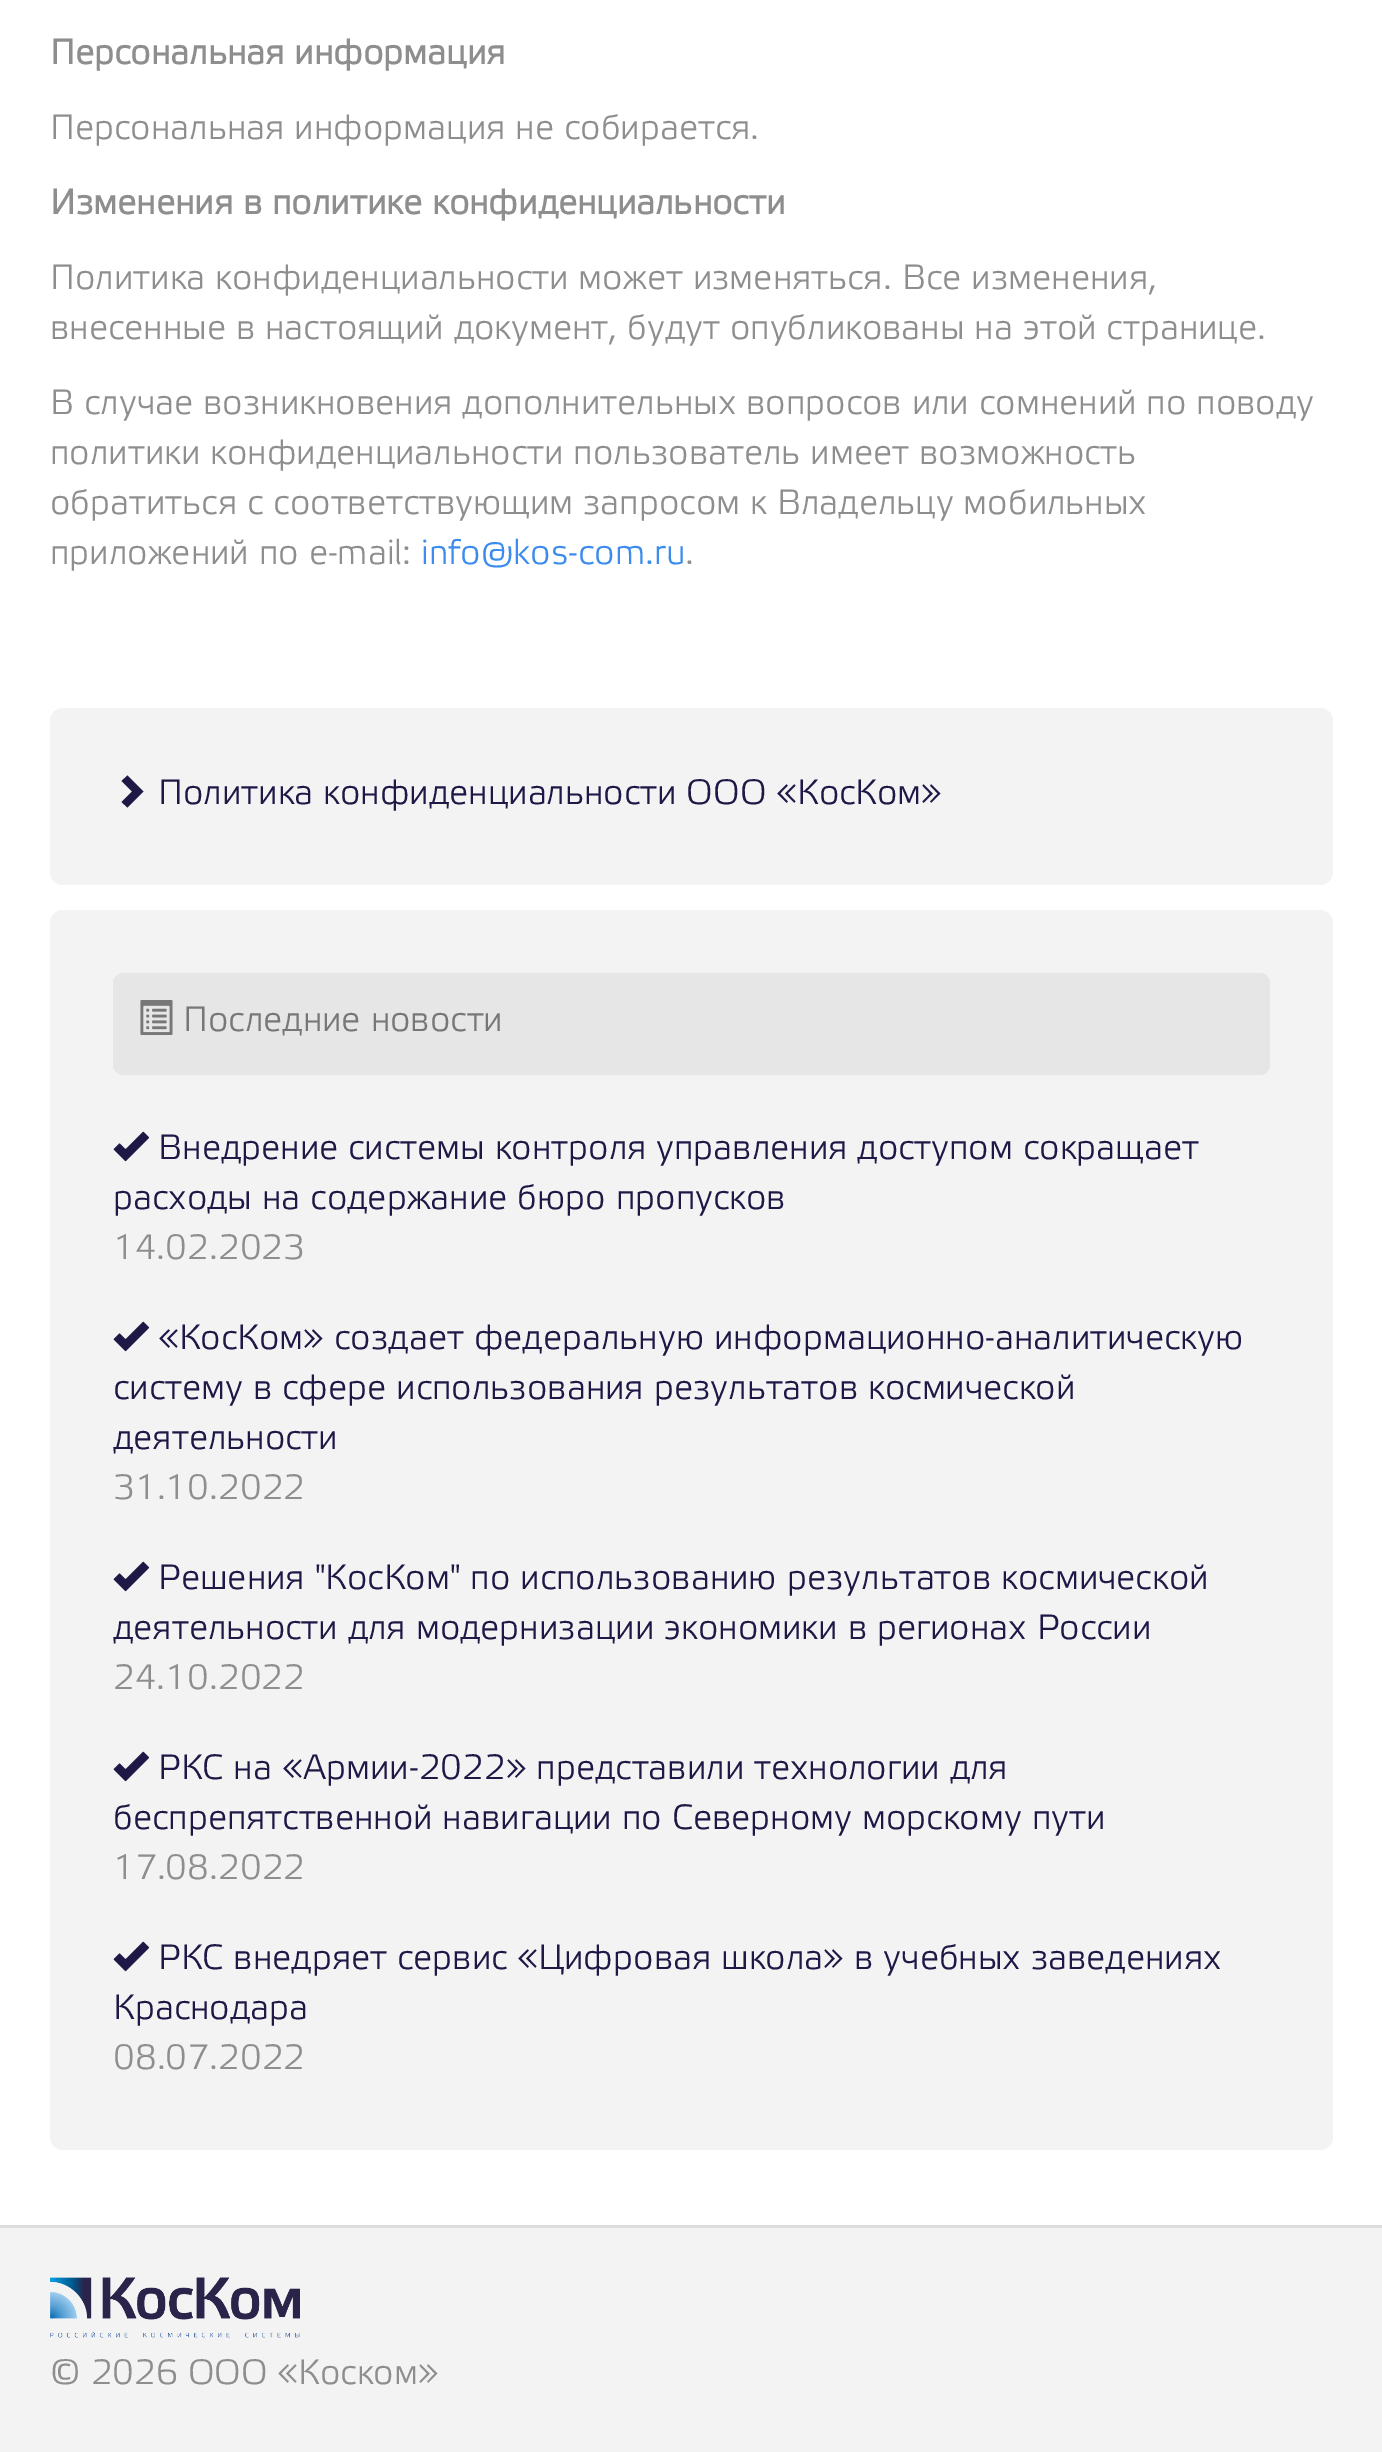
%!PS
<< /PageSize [1382 2452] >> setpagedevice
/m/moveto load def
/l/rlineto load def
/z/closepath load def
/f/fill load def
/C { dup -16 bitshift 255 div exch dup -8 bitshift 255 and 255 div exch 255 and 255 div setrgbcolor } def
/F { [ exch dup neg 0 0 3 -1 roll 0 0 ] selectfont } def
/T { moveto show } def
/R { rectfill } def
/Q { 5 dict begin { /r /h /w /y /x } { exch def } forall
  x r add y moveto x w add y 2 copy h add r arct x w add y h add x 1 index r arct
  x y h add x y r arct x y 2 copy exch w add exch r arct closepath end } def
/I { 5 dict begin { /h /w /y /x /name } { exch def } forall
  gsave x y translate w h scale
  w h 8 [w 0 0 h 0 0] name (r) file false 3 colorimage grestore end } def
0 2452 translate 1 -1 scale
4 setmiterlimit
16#FFFFFF C
0 0 1382 2452 R
/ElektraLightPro-Bold 35 F
16#8E8E8E C
(Персональная информация) 50 64 T
/ElektraLightPro-Light 35 F
(Персональная информация не собирается.) 50 139 T
/ElektraLightPro-Bold 35 F
(Изменения в политике конфиденциальности) 50 214 T
/ElektraLightPro-Light 35 F
(Политика конфиденциальности может изменяться. Все изменения,) 50 289 T
(внесенные в настоящий документ, будут опубликованы на этой странице.) 50 339 T
(В случае возникновения дополнительных вопросов или сомнений по поводу) 50 414 T
(политики конфиденциальности пользователь имеет возможность) 50 464 T
(обратиться с соответствующим запросом к Владельцу мобильных) 50 514 T
(приложений по e-mail:) 50 564 T
16#3B8CED C
(info@kos-com.ru) 421 564 T
16#8E8E8E C
(.) 685 564 T
16#F3F3F3 C
50 708 1283 177 13 Q f
16#1E1846 C
143.5 791.5 m -16 16 l -6 -5.5 l 10.5 -10.5 l -10.5 -10.5 l 6 -5.5 l z f
(Политика конфиденциальности ООО «КосКом») 158 804 T
16#F3F3F3 C
50 910 1283 1240 13 Q f
16#E6E6E6 C
113 973 1157 102 10 Q f
(1.rgb) 140 1000 33 35 I
16#777777 C
(Последние новости) 183 1031 T
(2.rgb) 113 1131 37 31 I
16#1E1846 C
(Внедрение системы контроля управления доступом сокращает) 158 1159 T
(расходы на содержание бюро пропусков) 113 1209 T
16#8E8E8E C
(14.02.2023) 113 1259 T
(2.rgb) 113 1321 37 31 I
16#1E1846 C
(«КосКом» создает федеральную информационно-аналитическую) 158 1349 T
(систему в сфере использования результатов космической) 113 1399 T
(деятельности) 113 1449 T
16#8E8E8E C
(31.10.2022) 113 1499 T
(2.rgb) 113 1561 37 31 I
16#1E1846 C
(Решения "КосКом" по использованию результатов космической) 158 1589 T
(деятельности для модернизации экономики в регионах России) 113 1639 T
16#8E8E8E C
(24.10.2022) 113 1689 T
(2.rgb) 113 1751 37 31 I
16#1E1846 C
(РКС на «Армии-2022» представили технологии для) 158 1779 T
(беспрепятственной навигации по Северному морскому пути) 113 1829 T
16#8E8E8E C
(17.08.2022) 113 1879 T
(2.rgb) 113 1941 37 31 I
16#1E1846 C
(РКС внедряет сервис «Цифровая школа» в учебных заведениях) 158 1969 T
(Краснодара) 113 2019 T
16#8E8E8E C
(08.07.2022) 113 2069 T
16#F3F3F3 C
0 2228 1382 224 R
16#DDDDDD C
0 2225 1382 3 R
(3.rgb) 50 2277 250 61 I
16#8E8E8E C
(© 2026 ООО «Коском») 50 2384 T
showpage
